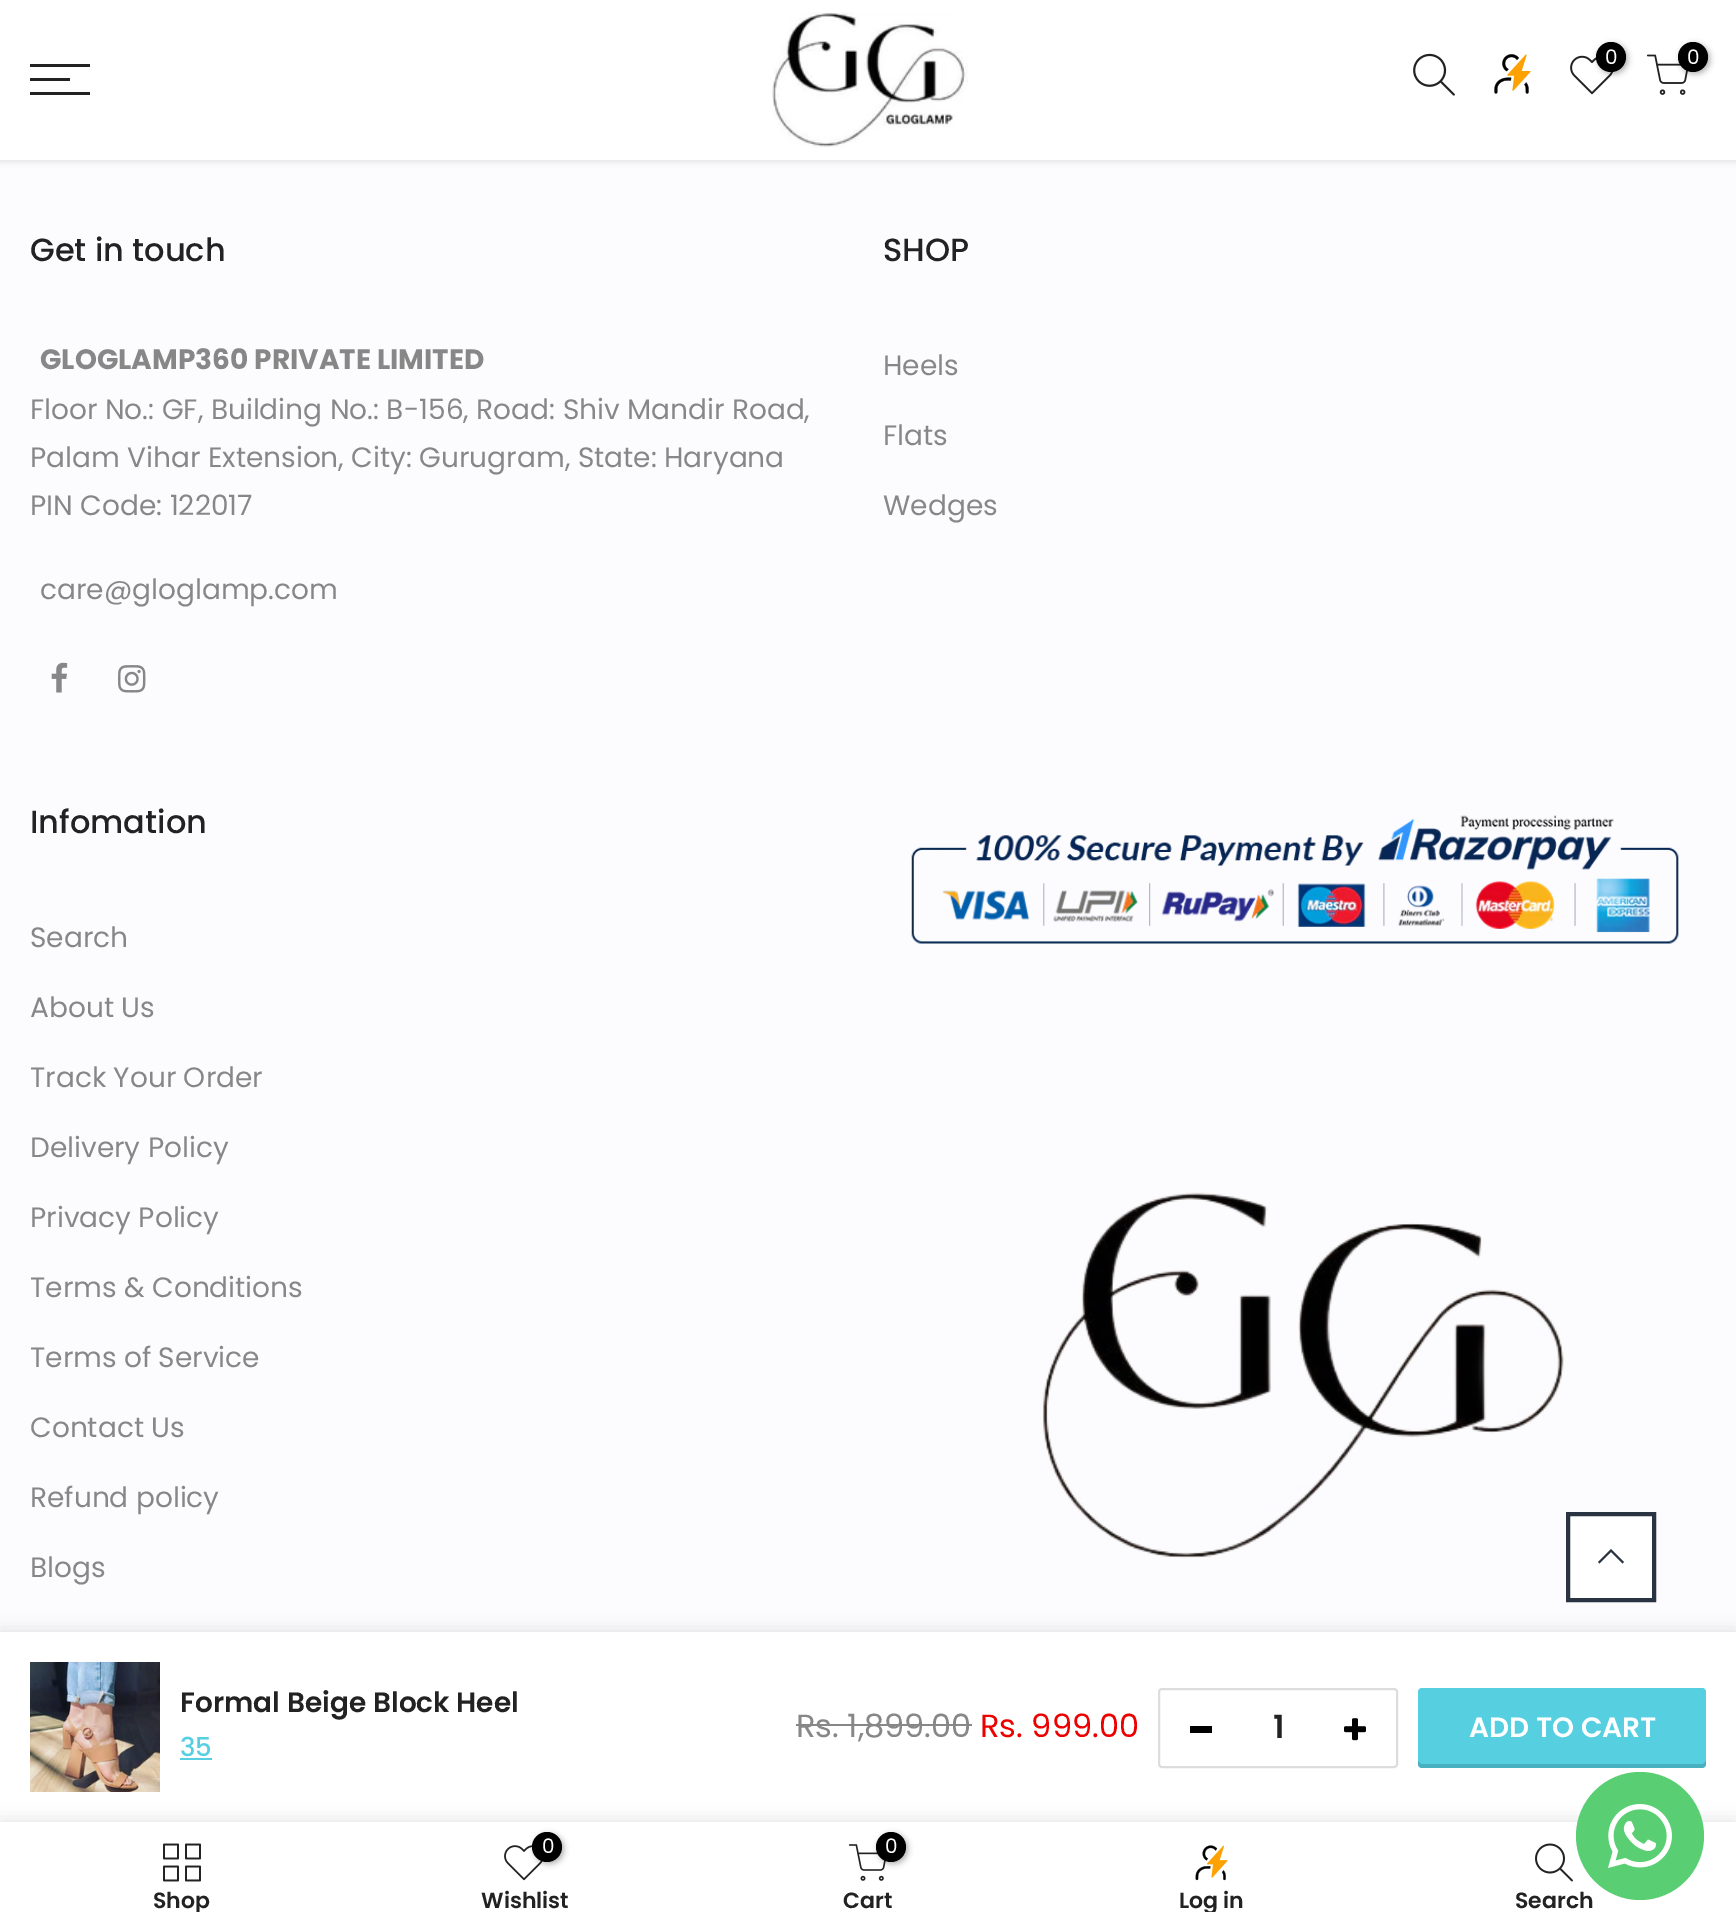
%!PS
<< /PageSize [1736 1932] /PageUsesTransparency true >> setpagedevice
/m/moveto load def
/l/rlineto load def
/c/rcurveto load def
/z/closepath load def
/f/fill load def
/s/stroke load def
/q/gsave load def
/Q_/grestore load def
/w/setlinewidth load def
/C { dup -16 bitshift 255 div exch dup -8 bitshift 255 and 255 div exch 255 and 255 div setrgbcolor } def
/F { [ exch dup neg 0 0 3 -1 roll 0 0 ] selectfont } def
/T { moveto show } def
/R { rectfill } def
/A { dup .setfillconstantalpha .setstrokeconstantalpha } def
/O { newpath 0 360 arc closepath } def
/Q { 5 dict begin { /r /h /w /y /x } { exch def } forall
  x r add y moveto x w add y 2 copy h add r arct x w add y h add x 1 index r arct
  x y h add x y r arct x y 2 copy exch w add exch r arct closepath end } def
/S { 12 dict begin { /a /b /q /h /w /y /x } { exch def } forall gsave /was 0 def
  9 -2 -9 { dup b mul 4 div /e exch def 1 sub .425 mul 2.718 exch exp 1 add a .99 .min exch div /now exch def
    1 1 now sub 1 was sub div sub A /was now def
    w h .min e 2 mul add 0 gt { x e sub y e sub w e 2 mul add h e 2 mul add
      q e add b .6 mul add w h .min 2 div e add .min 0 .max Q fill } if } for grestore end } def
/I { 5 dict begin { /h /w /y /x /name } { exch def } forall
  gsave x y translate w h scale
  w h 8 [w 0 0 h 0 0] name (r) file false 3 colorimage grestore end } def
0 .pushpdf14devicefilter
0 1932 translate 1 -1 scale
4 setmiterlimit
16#FCFCFF C
0 0 1736 1932 R
16#000000 C
0 2 1736 160 0 3 .1 S
16#FFFFFF C
0 0 1736 160 R
16#222222 C
30 64 60 3 R
30 78 40 3 R
30 92 60 3 R
(1.rgb) 772 12 196 136 I
(2.rgb) 1413 53 42 43 I
(3.rgb) 1494 54 37 40 I
(4.rgb) 1570 55 44 40 I
16#000000 C
1598 44 30 30 15 3 .3 S
1611 57 15 O f
/Poppins-Regular 20 F
16#FFFFFF C
(0) 1605 64 T
(5.rgb) 1646 54 42 41 I
16#000000 C
1680 44 30 30 15 3 .3 S
1693 57 15 O f
16#FFFFFF C
(0) 1687 64 T
/Poppins-Medium 32 F
16#222222 C
(Get in touch) 30 261 T
/Poppins-Bold 28 F
16#878787 C
(GLOGLAMP360 PRIVATE LIMITED) 40 369 T
/Poppins-Regular 28 F
(Floor No.: GF, Building No.: B-156, Road: Shiv Mandir Road,) 30 419 T
(Palam Vihar Extension, City: Gurugram, State: Haryana) 30 467 T
(PIN Code: 122017) 30 515 T
(care@gloglamp.com) 40 599 T
(6.rgb) 51 662 17 31 I
(7.rgb) 118 665 28 28 I
/Poppins-Medium 32 F
16#222222 C
(SHOP) 883 261 T
/Poppins-Regular 28 F
16#878787 C
(Heels) 883 375 T
(Flats) 883 445 T
(Wedges) 883 515 T
/Poppins-Medium 32 F
16#222222 C
(Infomation) 30 833 T
/Poppins-Regular 28 F
16#878787 C
(Search) 30 947 T
(About Us) 30 1017 T
(Track Your Order) 30 1087 T
(Delivery Policy) 30 1157 T
(Privacy Policy) 30 1227 T
(Terms & Conditions) 30 1297 T
(Terms of Service) 30 1367 T
(Contact Us) 30 1437 T
(Refund policy) 30 1507 T
(Blogs) 30 1577 T
(8.rgb) 911 815 768 129 I
(9.rgb) 1042 1192 522 367 I
16#FFFFFF C
1568 1514 m 86 0 l 0 86 l -86 0 l z q f Q_
16#293341 C
4 w
s
1612.5 1550.5 m -1.5 -1.5 l -13 13 l 1.5 1.5 l 11.5 -11.5 l 11.5 11.5 l 1.5 -1.5 l z f
16#000000 C
0 1632 1736 190 0 9 .12 S
16#FFFFFF C
0 1632 1736 190 R
(10.rgb) 30 1662 130 130 I
/Poppins-SemiBold 28 F
16#222222 C
(Formal Beige Block Heel) 180 1712 T
/Poppins-Medium 26 F
16#56CFE1 C
(35) 180 1756 T
180 1758 32 2 R
/Poppins-Regular 32 F
16#878787 C
(Rs. 1,899.00) 796 1737 T
796 1724 176 2 R
16#EC0101 C
(Rs. 999.00) 980 1737 T
16#DDDDDD C
2 w
1159 1689 238 78 3 Q s
/Poppins-SemiBold 32 F
16#222222 C
(1) 1273 1738 T
16#000000 C
1190 1726 22 7 R
(11.rgb) 1344 1718 22 23 I
16#56CFE1 C
1418 1688 288 80 4 Q f
0.15 A
16#000000 C
1418 1760 m 0 4 l 0 2 2 4 4 4 c 280 0 l 2 0 4 -2 4 -4 c 0 -4 l 0 2 -2 4 -4 4 c -280 0 l -2 0 -4 -2 -4 -4 c z f
/Poppins-SemiBold 28 F
1 A
16#FFFFFF C
(ADD TO CART) 1469 1737 T
16#000000 C
0 1822 1736 110 0 9 .12 S
16#FFFFFF C
0 1822 1736 110 R
(12.rgb) 163 1843 38 39 I
q
30 1890 304 22 rectclip
/Poppins-SemiBold 22 F
16#222222 C
(Shop) 153 1908 T
Q_
(13.rgb) 504 1845 39 36 I
16#000000 C
534 1834 30 30 15 3 .3 S
547 1847 15 O f
/Poppins-Regular 20 F
16#FFFFFF C
(0) 542 1853 T
/Poppins-SemiBold 22 F
16#222222 C
(Wishlist) 481 1908 T
(14.rgb) 848 1844 38 37 I
16#000000 C
878 1834 30 30 15 3 .3 S
891 1847 15 O f
/Poppins-Regular 20 F
16#FFFFFF C
(0) 885 1853 T
/Poppins-SemiBold 22 F
16#222222 C
(Cart) 843 1908 T
(15.rgb) 1195 1845 33 36 I
q
1060 1890 302 22 rectclip
(Log in) 1179 1908 T
Q_
(16.rgb) 1535 1843 38 39 I
(Search) 1515 1908 T
16#59CE72 C
1640 1836 64 O f
(17.rgb) 1608 1804 64 64 I
.poppdf14devicefilter showpage
